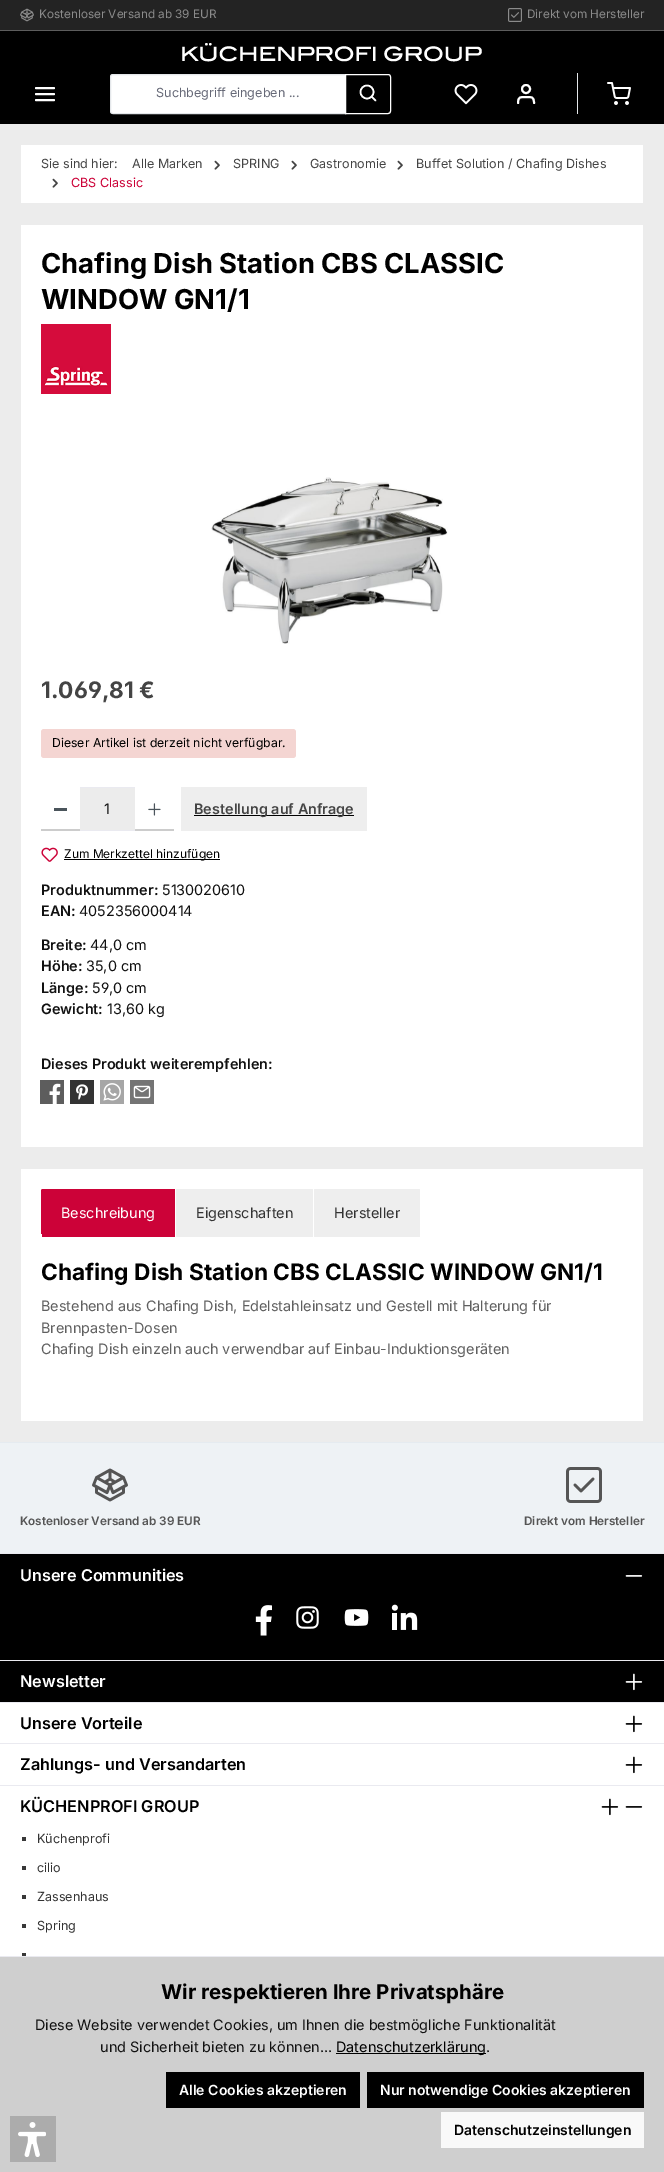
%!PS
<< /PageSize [664 2172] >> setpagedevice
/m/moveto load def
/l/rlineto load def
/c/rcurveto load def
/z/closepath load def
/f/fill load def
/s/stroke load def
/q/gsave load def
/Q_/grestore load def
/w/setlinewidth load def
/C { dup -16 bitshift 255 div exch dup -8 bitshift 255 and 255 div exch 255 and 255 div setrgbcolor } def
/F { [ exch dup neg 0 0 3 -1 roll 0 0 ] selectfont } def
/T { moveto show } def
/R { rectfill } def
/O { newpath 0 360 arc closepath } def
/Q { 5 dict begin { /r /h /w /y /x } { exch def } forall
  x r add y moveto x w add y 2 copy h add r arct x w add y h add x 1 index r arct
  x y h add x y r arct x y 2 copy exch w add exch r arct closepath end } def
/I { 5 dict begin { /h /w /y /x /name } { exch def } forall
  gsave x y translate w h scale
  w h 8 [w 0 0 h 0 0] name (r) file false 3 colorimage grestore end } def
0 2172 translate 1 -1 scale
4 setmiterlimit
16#ECECEC C
0 0 664 2172 R
16#232323 C
0 0 664 30 R
16#5D5D5D C
0 30 664 1 R
(1.rgb) 20 8 14 14 I
/Inter-Regular 11.75 F
16#8B8B8B C
(Kostenloser Versand ab 39 EUR) 39 18 T
(2.rgb) 508 8 14 14 I
(Direkt vom Hersteller) 527 18 T
16#000000 C
0 31 664 93 R
(3.rgb) 182 43 300 19 I
16#FFFFFF C
2 w
1 setlinecap
1 setlinejoin
36 94 m 18 0 l 36 88 m 18 0 l 36 100 m 18 0 l s
113 74.5 m 232.5 0 l 0 39 l -232.5 0 l -1.5 0 -2.5 -1 -2.5 -2.5 c 0 -34 l 0 -1.5 1 -2.5 2.5 -2.5 c z q f Q_
16#E4E7EA C
1 w
0 setlinecap
0 setlinejoin
s
/Inter-Regular 12.6 F
16#666977 C
(Suchbegriff eingeben ...) 156 97 T
16#000000 C
345.5 74.5 m 42.5 0 l 1.5 0 2.5 1 2.5 2.5 c 0 34 l 0 1.5 -1 2.5 -2.5 2.5 c -42.5 0 l z q f Q_
16#FFFFFF C
s
1.6 w
367 92 6.5 O s
1 setlinecap
1 setlinejoin
375.5 100.5 m -4 -4 l s
(4.rgb) 454 84 24 21 I
2 w
0 setlinecap
0 setlinejoin
526 89 4 O s
1 setlinecap
1 setlinejoin
534 103 m 0 -6.5 -2.5 -6 -8 -6 c -5.5 0 -8 -.5 -8 6 c s
16#E4E7EA C
577 73 1 41 R
(5.rgb) 607 82 24 23 I
16#FFFFFF C
21 145 622 58 R
16#444444 C
(Sie sind hier:) 41 168 T
(Alle Marken) 132 168 T
(6.rgb) 214 160 6 10 I
(SPRING) 233 168 T
(6.rgb) 291 160 6 10 I
(Gastronomie) 310 168 T
(6.rgb) 397 160 6 10 I
(Buffet Solution / Chafing Dishes) 416 168 T
(6.rgb) 52 178 6 10 I
16#CC0238 C
(CBS Classic) 71 187 T
16#FFFFFF C
21 225 622 922 R
/Inter-Bold 27.4 F
16#000000 C
(Chafing Dish Station CBS CLASSIC) 41 273 T
(WINDOW GN1/1) 41 309 T
(7.rgb) 41 324 70 70 I
(8.rgb) 211 477 237 167 I
/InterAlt-Bold 22.7 F
16#444444 C
(1.069,81 €) 41 698 T
16#F4D5D2 C
41 729 255 29 3 Q f
/Inter-Regular 12.25 F
16#000000 C
(Dieser Artikel ist derzeit nicht verfügbar.) 52 747 T
16#EAEAF0 C
79 787 57 1 R
16#FFFFFF C
79 787 1 1 R
16#EAEAF0 C
79 830 57 1 R
16#CCCCCC C
41 829 39 2 R
16#4A545B C
54 808 13 3 R
16#ECECEC C
80 788 55 42 R
/Inter-Regular 14.4 F
16#111111 C
(1) 104 814 T
16#FFFFFF C
135 787 1 1 R
16#CCCCCC C
135 829 39 2 R
(9.rgb) 148 803 13 13 I
16#EEEEEE C
181 787 186 44 R
16#000000 C
194 815 160 1 R
/Inter-SemiBold 14.4 F
16#444444 C
(Bestellung auf Anfrage) 194 814 T
(10.rgb) 41 847 17 15 I
16#000000 C
64 859 156 1 R
/Inter-Regular 12 F
(Zum Merkzettel hinzufügen) 64 858 T
/Inter-SemiBold 14.4 F
16#111111 C
(Produktnummer:) 41 895 T
/Inter-Regular 14.4 F
(5130020610) 162 895 T
/Inter-SemiBold 14.4 F
(EAN:) 41 916 T
/Inter-Regular 14.4 F
(4052356000414) 79 916 T
/Inter-SemiBold 14.4 F
(Breite:) 41 950 T
/Inter-Regular 14.4 F
(44,0 cm) 90 950 T
/Inter-SemiBold 14.4 F
(Höhe:) 41 971 T
/Inter-Regular 14.4 F
(35,0 cm) 86 971 T
/Inter-SemiBold 14.4 F
(Länge:) 41 993 T
/InterAlt-Regular 14.4 F
(59,0 cm) 92 993 T
/Inter-SemiBold 14.4 F
(Gewicht:) 41 1014 T
/Inter-Regular 14.4 F
(13,60 kg) 107 1014 T
/Inter-SemiBold 14.4 F
(Dieses Produkt weiterempfehlen:) 41 1069 T
(11.rgb) 40 1080 24 24 I
(12.rgb) 70 1080 24 24 I
(13.rgb) 100 1080 24 24 I
(14.rgb) 130 1080 24 24 I
16#FFFFFF C
21 1169 622 252 R
16#CC0238 C
42 1189 m 132 0 l 1 0 1 0 1 1 c 0 44 l -134 0 l 0 -44 l z f
42 1234 133 3 R
/Inter-Regular 14.4 F
16#FFFFFF C
(Beschreibung) 61 1218 T
16#EEEEEE C
176 1189 137 48 1 Q f
312 1236 1 1 R
16#333333 C
(Eigenschaften) 196 1218 T
16#EEEEEE C
314 1189 106 48 1 Q f
419 1236 1 1 R
16#333333 C
(Hersteller) 334 1218 T
/Inter-Bold 22.7 F
16#000000 C
(Chafing Dish Station CBS CLASSIC WINDOW GN1/1) 41 1280 T
/Inter-Regular 14.4 F
16#606060 C
(Bestehend aus Chafing Dish, Edelstahleinsatz und Gestell mit Halterung für) 41 1311 T
(Brennpasten-Dosen) 41 1333 T
(Chafing Dish einzeln auch verwendbar auf Einbau-Induktionsgeräten) 41 1354 T
16#EEF2F5 C
0 1443 664 110 R
16#E5EBF0 C
0 1442 664 1 R
(15.rgb) 92 1468 36 34 I
/Inter-SemiBold 11.75 F
16#555555 C
(Kostenloser Versand ab 39 EUR) 20 1525 T
(16.rgb) 566 1467 36 36 I
(Direkt vom Hersteller) 524 1525 T
16#FFFFFF C
0 1703 664 253 R
16#000000 C
0 1554 664 148 R
16#EAEAF0 C
0 1553 664 1 R
0 1660 664 1 R
/Inter-SemiBold 16.25 F
16#FFFFFF C
(Unsere Communities) 20 1581 T
(17.rgb) 625 1575 18 2 I
(18.rgb) 255 1605 17 31 I
(19.rgb) 296 1606 23 23 I
(20.rgb) 344 1609 25 17 I
(21.rgb) 391 1604 27 26 I
16#EAEAF0 C
0 1702 664 1 R
16#FFFFFF C
(Newsletter) 20 1687 T
(22.rgb) 625 1673 18 18 I
16#EAEAF0 C
0 1743 664 1 R
16#000000 C
(Unsere Vorteile) 20 1729 T
(23.rgb) 625 1715 18 18 I
16#EAEAF0 C
0 1785 664 1 R
16#000000 C
(Zahlungs- und Versandarten) 20 1770 T
(23.rgb) 625 1756 18 18 I
(KÜCHENPROFI GROUP) 20 1812 T
(23.rgb) 601 1798 18 18 I
(24.rgb) 625 1806 18 2 I
16#383838 C
22 1837 4 4 R
/Inter-Regular 12.6 F
16#333333 C
(Küchenprofi) 37 1843 T
16#383838 C
22 1866 4 4 R
16#333333 C
(cilio) 37 1872 T
16#383838 C
22 1895 4 4 R
16#333333 C
(Zassenhaus) 37 1901 T
16#383838 C
22 1924 4 4 R
16#333333 C
(Spring) 37 1930 T
16#383838 C
22 1953 4 3 R
16#CFCFCF C
0 1957 664 215 R
16#ACACAC C
10 2116 46 46 R
(25.rgb) 18 2122 28 35 I
16#EAEAF0 C
0 1956 664 1 R
/Inter-Bold 20.4 F
16#000000 C
(Wir respektieren Ihre Privatsphäre) 161 1999 T
/Inter-Regular 14.4 F
16#111111 C
(Diese Website verwendet Cookies, um Ihnen die bestmögliche Funktionalität) 35 2030 T
(und Sicherheit bieten zu können...) 100 2052 T
16#000000 C
336 2053 150 1 R
(Datenschutzerklärung) 336 2052 T
16#111111 C
(.) 486 2052 T
16#000000 C
166 2072 194 36 R
/Inter-SemiBold 14 F
16#FFFFFF C
(Alle Cookies akzeptieren) 179 2095 T
16#000000 C
367 2072 277 36 R
16#FFFFFF C
(Nur notwendige Cookies akzeptieren) 380 2095 T
16#F9F9F9 C
441 2112 203 36 R
16#000000 C
(Datenschutzeinstellungen) 454 2135 T
showpage
